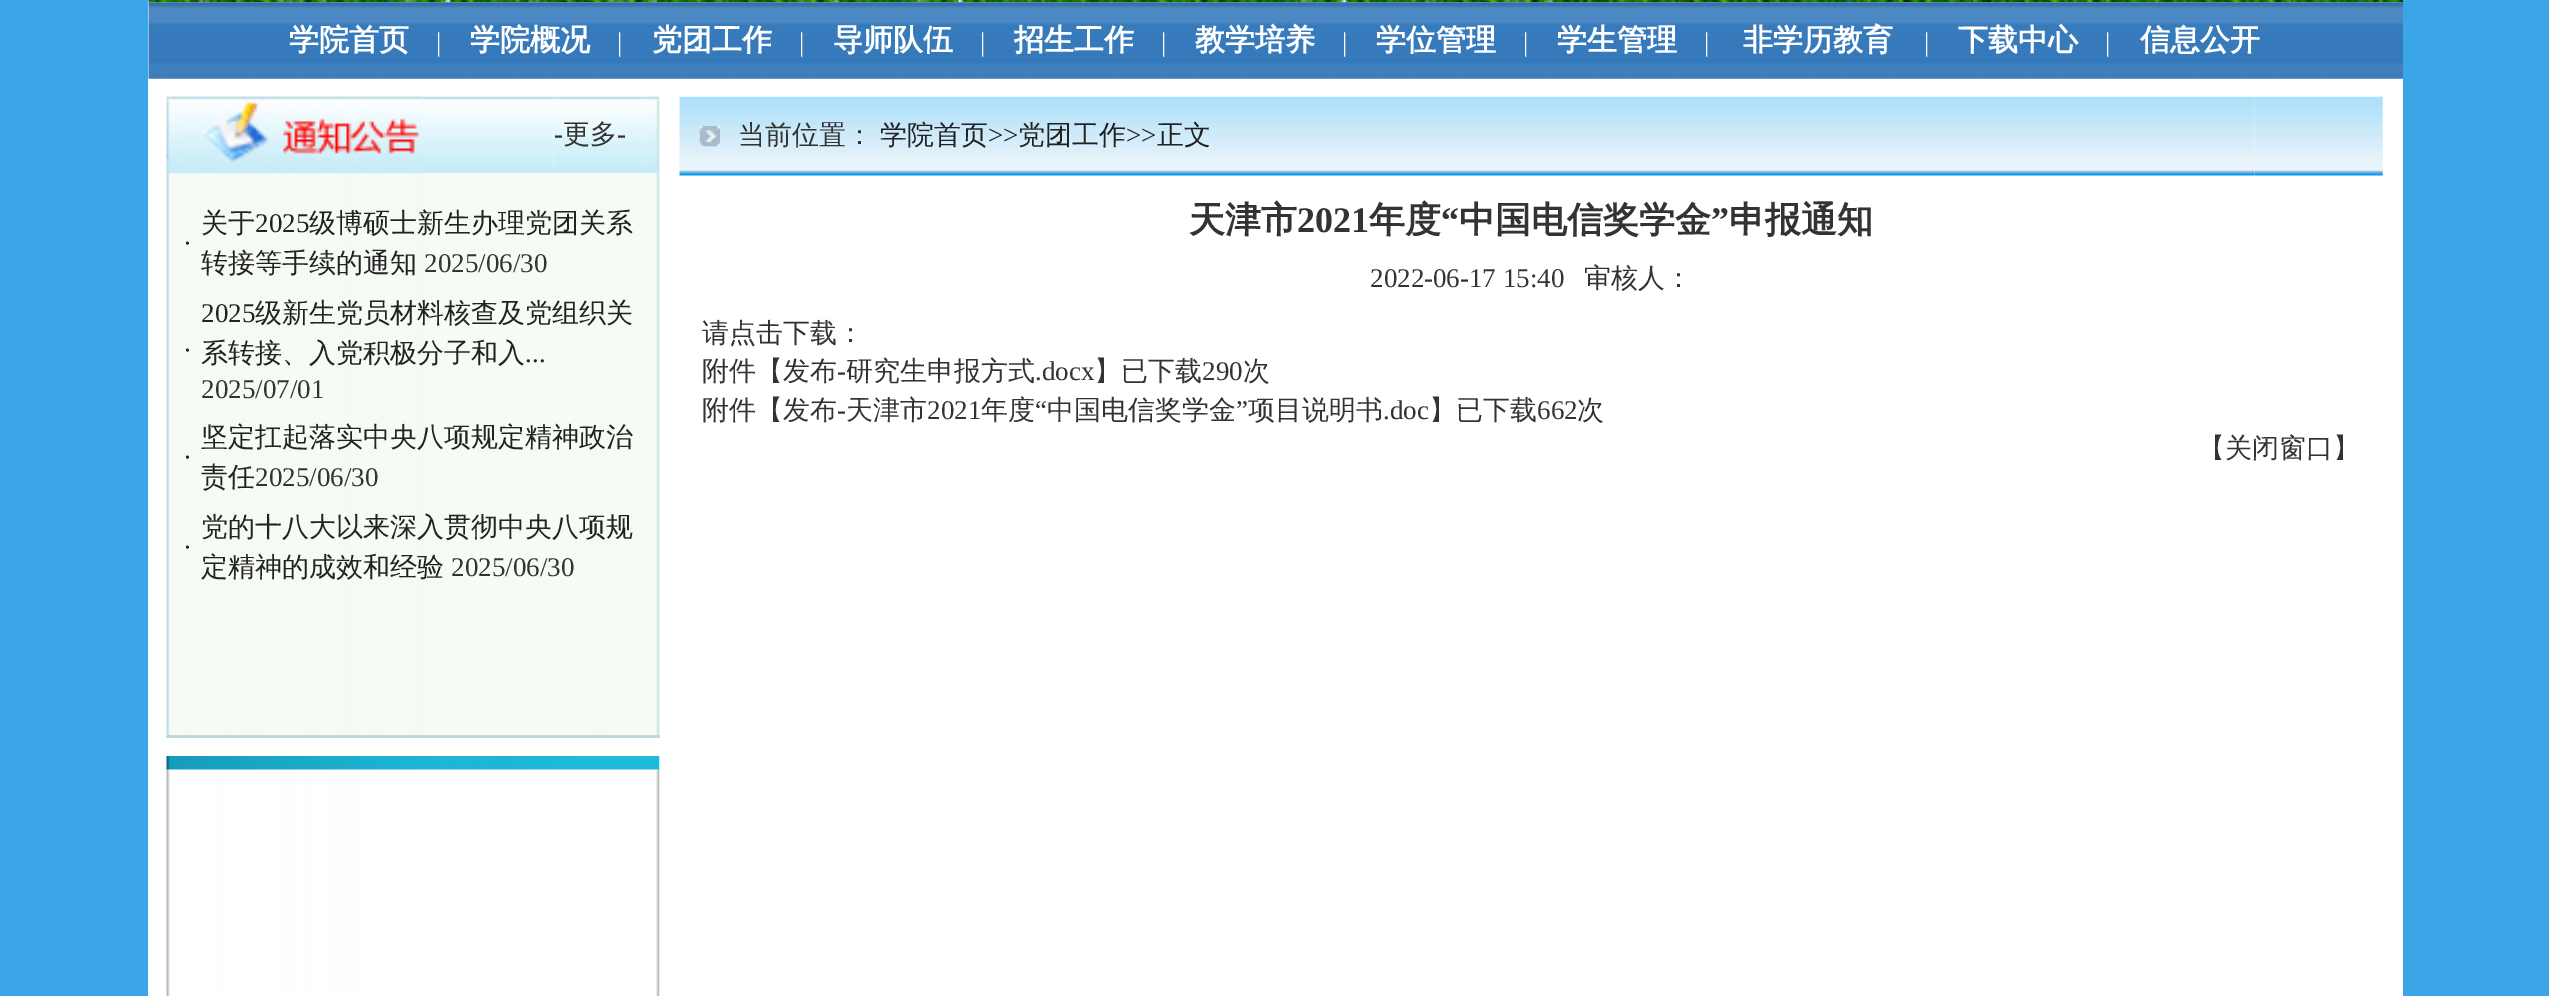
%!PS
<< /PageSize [2549 996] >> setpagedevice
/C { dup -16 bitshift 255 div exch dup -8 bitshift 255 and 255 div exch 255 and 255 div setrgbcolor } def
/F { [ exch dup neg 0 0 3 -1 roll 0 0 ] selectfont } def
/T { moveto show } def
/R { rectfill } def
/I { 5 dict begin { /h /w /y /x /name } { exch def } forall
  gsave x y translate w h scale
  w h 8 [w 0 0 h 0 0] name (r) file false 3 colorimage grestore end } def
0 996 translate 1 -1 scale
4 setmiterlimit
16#3AA6E7 C
0 0 2549 996 R
16#FFFFFF C
148 0 2255 996 R
(1.rgb) 148 0 2255 3 I
(2.rgb) 148 2 2255 77 I
/WenQuanYiZenHei-Bold 30 F
(学院首页) 289 50 T
/LiberationSerif-Regular 27 F
(|) 436 51 T
/WenQuanYiZenHei-Bold 30 F
(学院概况) 470 50 T
/LiberationSerif-Regular 27 F
(|) 617 51 T
/WenQuanYiZenHei-Bold 30 F
(党团工作) 652 50 T
/LiberationSerif-Regular 27 F
(|) 799 51 T
/WenQuanYiZenHei-Bold 30 F
(导师队伍) 833 50 T
/LiberationSerif-Regular 27 F
(|) 980 51 T
/WenQuanYiZenHei-Bold 30 F
(招生工作) 1014 50 T
/LiberationSerif-Regular 27 F
(|) 1161 51 T
/WenQuanYiZenHei-Bold 30 F
(教学培养) 1195 50 T
/LiberationSerif-Regular 27 F
(|) 1342 51 T
/WenQuanYiZenHei-Bold 30 F
(学位管理) 1376 50 T
/LiberationSerif-Regular 27 F
(|) 1523 51 T
/WenQuanYiZenHei-Bold 30 F
(学生管理) 1557 50 T
/LiberationSerif-Regular 27 F
(|) 1704 51 T
/WenQuanYiZenHei-Bold 30 F
(非学历教育) 1743 50 T
/LiberationSerif-Regular 27 F
(|) 1924 51 T
/WenQuanYiZenHei-Bold 30 F
(下载中心) 1958 50 T
/LiberationSerif-Regular 27 F
(|) 2105 51 T
/WenQuanYiZenHei-Bold 30 F
(信息公开) 2140 50 T
(3.rgb) 166 96 388 78 I
(5.rgb) 553 96 93 78 I
(6.rgb) 645 96 15 78 I
(8.rgb) 166 173 494 562 I
(4.rgb) 166 96 255 78 I
/LiberationSerif-Regular 27 F
16#333333 C
(-) 554 143 T
/WenQuanYiZenHei-Medium 27 F
(更多) 563 143 T
/LiberationSerif-Regular 27 F
(-) 617 143 T
(7.rgb) 652 96 8 78 I
16#222222 C
(·) 183 252 T
/WenQuanYiZenHei-Medium 27 F
(关于) 201 232 T
/LiberationSerif-Regular 27 F
(2025) 255 232 T
/WenQuanYiZenHei-Medium 27 F
(级博硕士新生办理党团关系) 309 232 T
(转接等手续的通知) 201 272 T
/LiberationSerif-Regular 27 F
16#333333 C
(2025/06/30) 424 272 T
16#222222 C
(·) 183 359 T
(2025) 201 322 T
/WenQuanYiZenHei-Medium 27 F
(级新生党员材料核查及党组织关) 255 322 T
(系转接、入党积极分子和入) 201 362 T
/LiberationSerif-Regular 27 F
(...) 525 362 T
16#333333 C
(2025/07/01) 201 398 T
16#222222 C
(·) 183 466 T
/WenQuanYiZenHei-Medium 27 F
(坚定扛起落实中央八项规定精神政治) 201 446 T
(责任) 201 486 T
/LiberationSerif-Regular 27 F
16#333333 C
(2025/06/30) 255 486 T
16#222222 C
(·) 183 556 T
/WenQuanYiZenHei-Medium 27 F
(党的十八大以来深入贯彻中央八项规) 201 536 T
(定精神的成效和经验) 201 576 T
/LiberationSerif-Regular 27 F
16#333333 C
(2025/06/30) 451 576 T
16#BDDADE C
166 735 494 3 R
(10.rgb) 166 769 494 227 I
(9.rgb) 166 756 494 14 I
(11.rgb) 679 96 59 80 I
(12.rgb) 699 126 21 21 I
(13.rgb) 738 96 1517 80 I
/WenQuanYiZenHei-Medium 27 F
16#333333 C
(当前位置：) 738 144 T
16#222222 C
(学院首页) 880 144 T
/LiberationSerif-Regular 27 F
(>>) 988 144 T
/WenQuanYiZenHei-Medium 27 F
(党团工作) 1018 144 T
/LiberationSerif-Regular 27 F
(>>) 1126 144 T
/WenQuanYiZenHei-Medium 27 F
(正文) 1157 144 T
(14.rgb) 2254 96 129 80 I
/WenQuanYiZenHei-Bold 36 F
16#333333 C
(天津市) 1189 232 T
/LiberationSerif-Bold 36 F
(2021) 1297 232 T
/WenQuanYiZenHei-Bold 36 F
(年度) 1369 232 T
/LiberationSerif-Bold 36 F
(“) 1441 232 T
/WenQuanYiZenHei-Bold 36 F
(中国电信奖学金) 1459 232 T
/LiberationSerif-Bold 36 F
(”) 1711 232 T
/WenQuanYiZenHei-Bold 36 F
(申报通知) 1729 232 T
/LiberationSerif-Regular 27 F
(2022-06-17 15:40) 1370 287 T
/WenQuanYiZenHei-Medium 27 F
(审核人：) 1584 287 T
(请点击下载：) 702 342 T
(附件【发布) 702 380 T
/LiberationSerif-Regular 27 F
(-) 837 380 T
/WenQuanYiZenHei-Medium 27 F
(研究生申报方式) 846 380 T
/LiberationSerif-Regular 27 F
(.docx) 1035 380 T
/WenQuanYiZenHei-Medium 27 F
(】已下载) 1094 380 T
/LiberationSerif-Regular 27 F
(290) 1202 380 T
/WenQuanYiZenHei-Medium 27 F
(次) 1243 380 T
(附件【发布) 702 419 T
/LiberationSerif-Regular 27 F
(-) 837 419 T
/WenQuanYiZenHei-Medium 27 F
(天津市) 846 419 T
/LiberationSerif-Regular 27 F
(2021) 927 419 T
/WenQuanYiZenHei-Medium 27 F
(年度) 981 419 T
/LiberationSerif-Regular 27 F
(“) 1035 419 T
/WenQuanYiZenHei-Medium 27 F
(中国电信奖学金) 1047 419 T
/LiberationSerif-Regular 27 F
(”) 1236 419 T
/WenQuanYiZenHei-Medium 27 F
(项目说明书) 1248 419 T
/LiberationSerif-Regular 27 F
(.doc) 1383 419 T
/WenQuanYiZenHei-Medium 27 F
(】已下载) 1429 419 T
/LiberationSerif-Regular 27 F
(662) 1537 419 T
/WenQuanYiZenHei-Medium 27 F
(次) 1577 419 T
(【关闭窗口】) 2198 457 T
showpage
